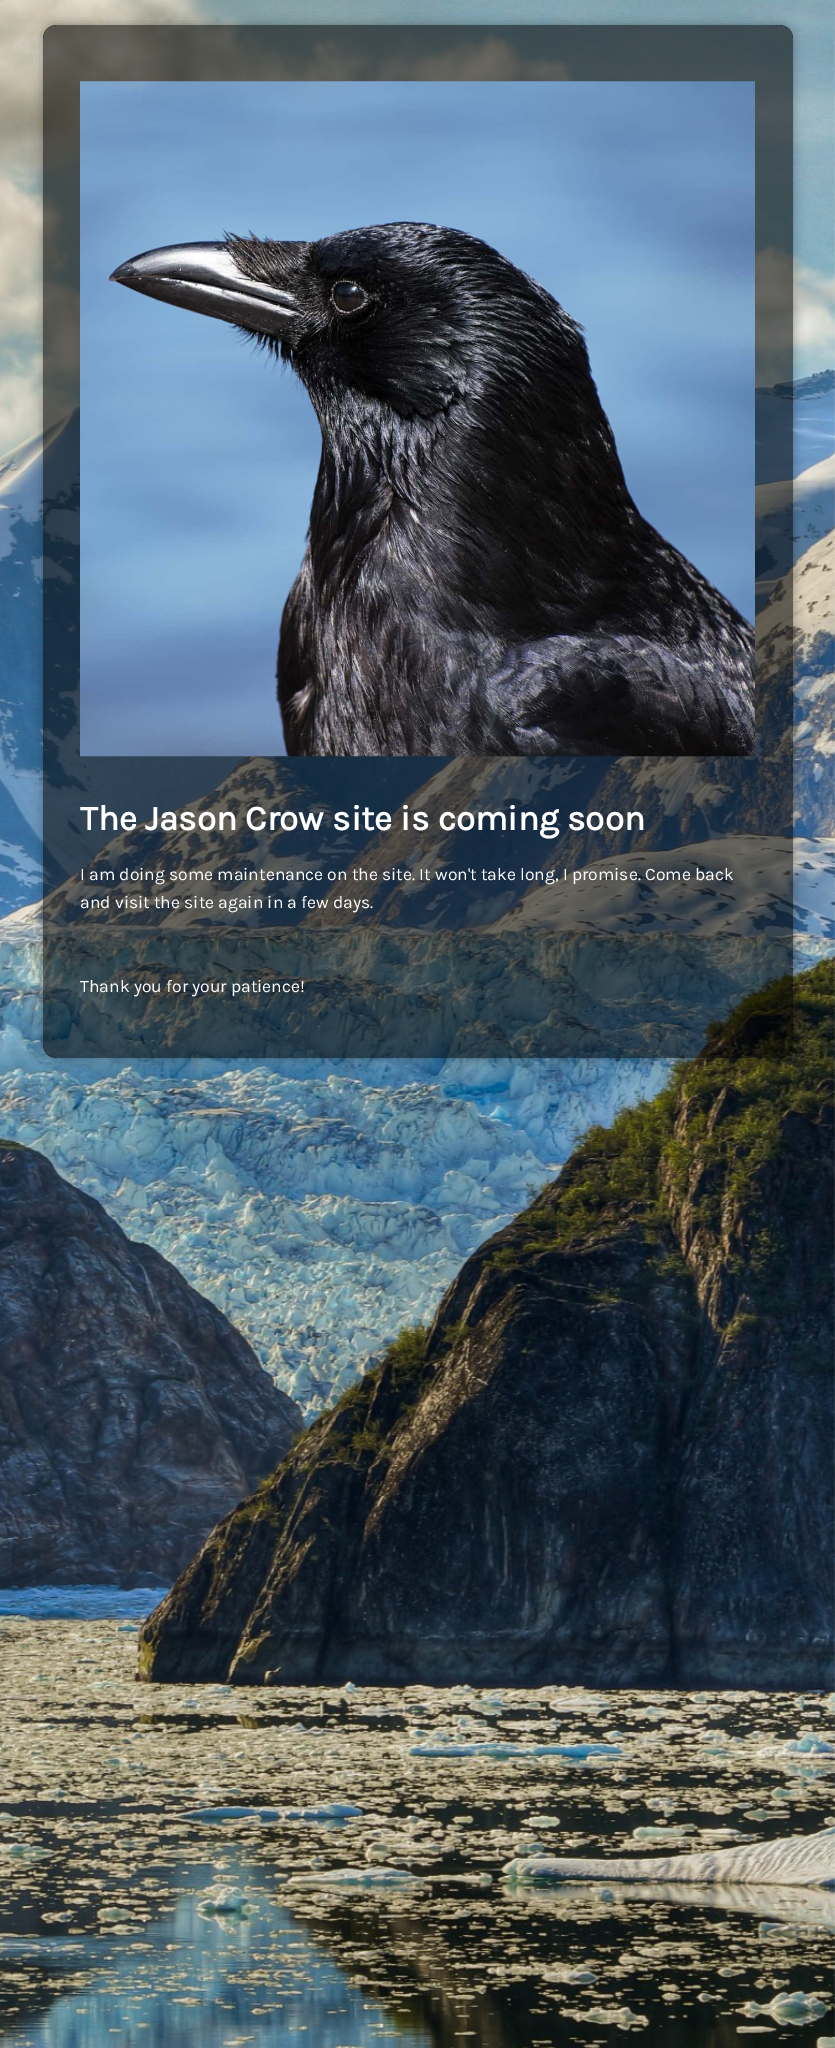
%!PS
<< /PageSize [835 2048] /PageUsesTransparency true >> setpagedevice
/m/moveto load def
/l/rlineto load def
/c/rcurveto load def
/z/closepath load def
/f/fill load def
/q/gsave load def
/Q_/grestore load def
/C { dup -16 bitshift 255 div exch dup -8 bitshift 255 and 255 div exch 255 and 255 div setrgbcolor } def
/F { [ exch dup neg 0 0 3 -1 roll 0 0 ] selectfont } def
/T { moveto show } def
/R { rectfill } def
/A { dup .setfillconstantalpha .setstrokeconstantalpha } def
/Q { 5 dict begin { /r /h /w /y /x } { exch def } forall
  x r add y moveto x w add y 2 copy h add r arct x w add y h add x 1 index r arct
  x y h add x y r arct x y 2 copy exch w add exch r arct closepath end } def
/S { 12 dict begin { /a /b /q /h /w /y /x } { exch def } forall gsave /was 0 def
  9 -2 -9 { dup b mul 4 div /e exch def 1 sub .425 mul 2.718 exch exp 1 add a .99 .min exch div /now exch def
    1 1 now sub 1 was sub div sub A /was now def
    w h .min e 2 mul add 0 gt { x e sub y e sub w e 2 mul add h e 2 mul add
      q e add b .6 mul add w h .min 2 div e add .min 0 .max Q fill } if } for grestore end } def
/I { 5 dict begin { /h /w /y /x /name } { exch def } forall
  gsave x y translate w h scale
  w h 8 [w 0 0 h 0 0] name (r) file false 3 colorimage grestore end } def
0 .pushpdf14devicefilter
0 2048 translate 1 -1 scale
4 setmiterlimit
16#FFFFFF C
0 0 835 2048 R
(1.rgb) 0 0 835 2048 I
q
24 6 m 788 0 l 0 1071 l -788 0 l z 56 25 m 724 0 l 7 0 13 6 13 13 c 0 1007 l 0 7 -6 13 -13 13 c -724 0 l -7 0 -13 -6 -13 -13 c 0 -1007 l 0 -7 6 -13 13 -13 c z eoclip newpath
16#000000 C
43 25 750 1033 13 6 .33 S
Q_
0.55 A
16#000000 C
43 25 750 1033 13 Q f
1 A
(2.rgb) 80 81 675 676 I
/Karla-Bold 35 F
16#FFFFFF C
(The Jason Crow site is coming soon) 80 830 T
/Karla-Regular 17.5 F
(I am doing some maintenance on the site. It won't take long, I promise. Come back) 80 880 T
(and visit the site again in a few days.) 80 908 T
(Thank you for your patience!) 80 992 T
.poppdf14devicefilter showpage
